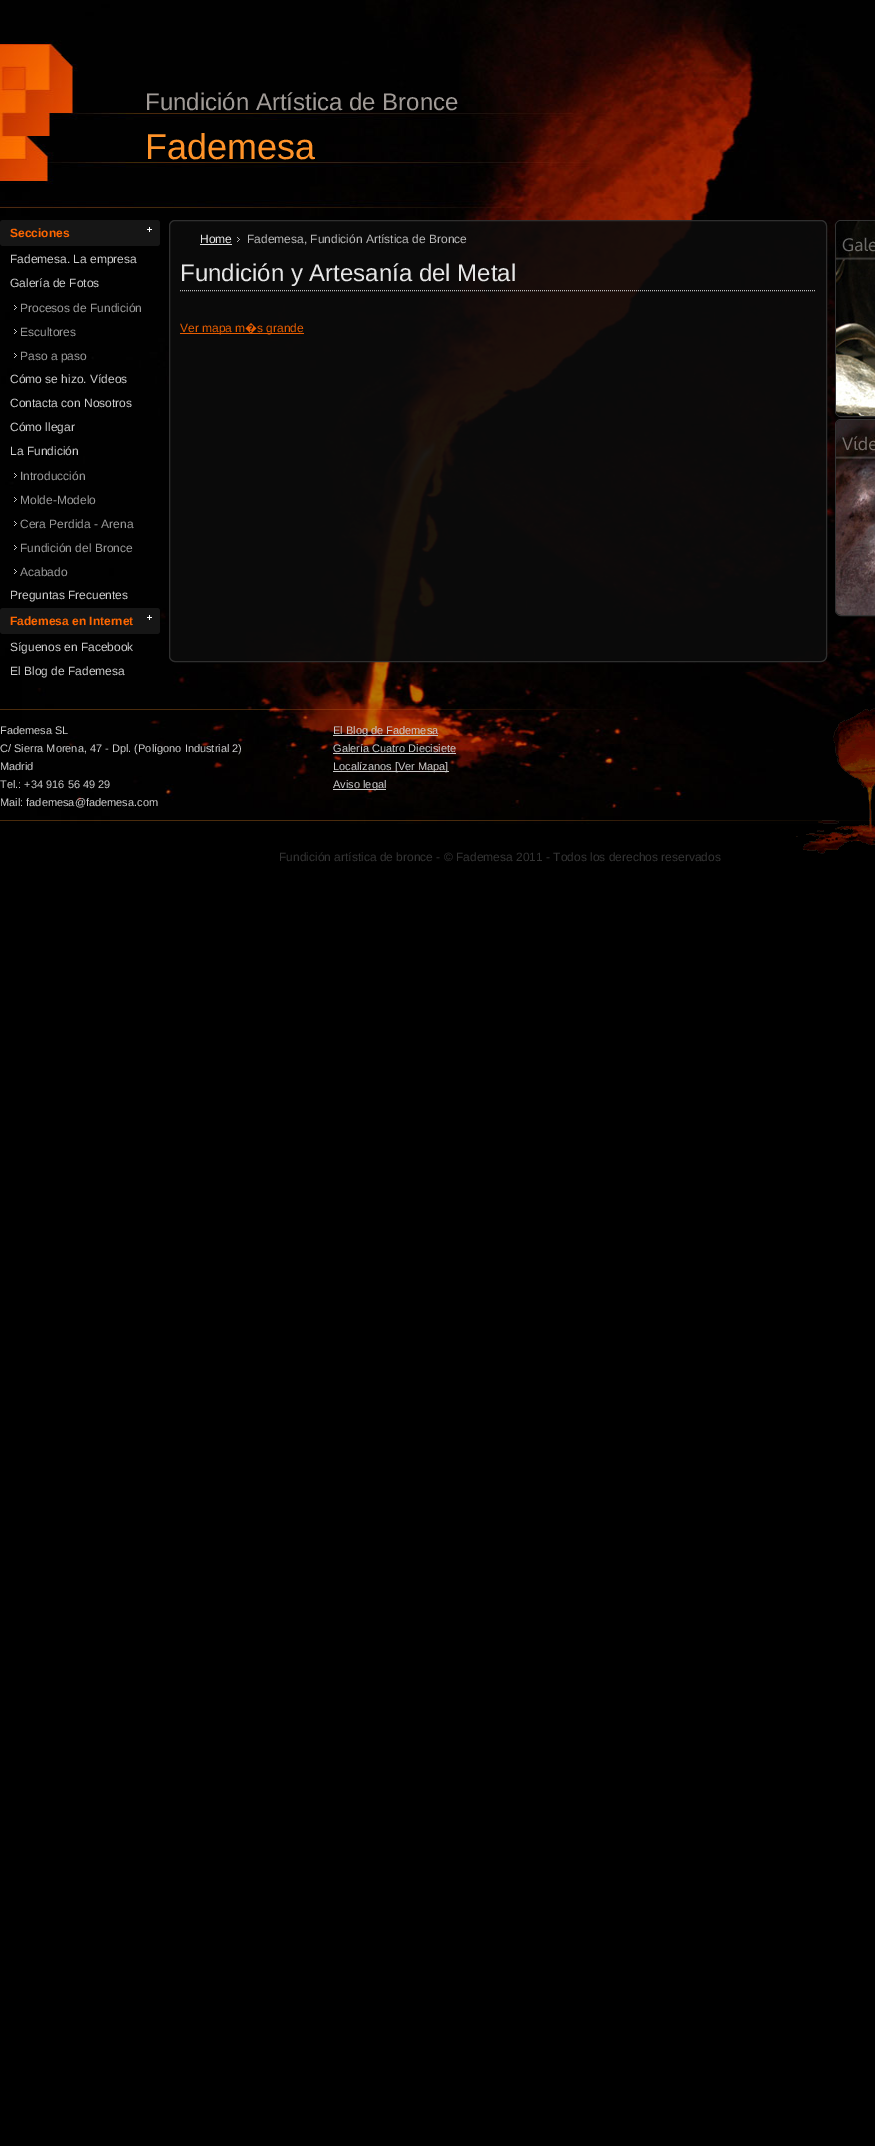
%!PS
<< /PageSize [875 2146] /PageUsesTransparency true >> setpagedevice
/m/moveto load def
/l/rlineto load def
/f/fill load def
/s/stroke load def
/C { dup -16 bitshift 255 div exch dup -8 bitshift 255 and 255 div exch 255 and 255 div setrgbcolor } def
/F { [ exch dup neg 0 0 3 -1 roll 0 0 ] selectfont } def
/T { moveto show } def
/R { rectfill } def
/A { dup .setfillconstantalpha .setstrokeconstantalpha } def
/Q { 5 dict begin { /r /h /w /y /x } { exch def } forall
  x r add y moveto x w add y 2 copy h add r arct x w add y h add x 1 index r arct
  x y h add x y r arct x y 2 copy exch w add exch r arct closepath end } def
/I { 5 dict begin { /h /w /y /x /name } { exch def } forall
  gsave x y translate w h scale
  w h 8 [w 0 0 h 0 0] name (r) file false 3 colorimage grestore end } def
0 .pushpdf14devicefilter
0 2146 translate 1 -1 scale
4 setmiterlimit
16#000000 C
0 0 875 2146 R
(1.rgb) 0 0 875 824 I
/LiberationSans-Regular 24 F
16#A19B97 C
(Fundición Artística de Bronce) 145 110 T
/LiberationSans-Regular 36 F
16#FF9329 C
(Fademesa) 145 159 T
16#161616 C
0 220 160 26 3 Q f
(2.rgb) 147 227 5 5 I
/LiberationSans-Bold 12 F
16#FF6600 C
(Secciones) 10 237 T
/LiberationSans-Regular 12 F
16#CCCCCC C
(Fademesa. La empresa) 10 263 T
(Galería de Fotos) 10 287 T
(3.rgb) 14 305 3 5 I
16#999999 C
(Procesos de Fundición) 20 312 T
(3.rgb) 14 329 3 5 I
(Escultores) 20 336 T
(3.rgb) 14 353 3 5 I
(Paso a paso) 20 360 T
16#CCCCCC C
(Cómo se hizo. Vídeos) 10 383 T
(Contacta con Nosotros) 10 407 T
(Cómo llegar) 10 431 T
(La Fundición) 10 455 T
(3.rgb) 14 473 3 5 I
16#999999 C
(Introducción) 20 480 T
(3.rgb) 14 497 3 5 I
(Molde-Modelo) 20 504 T
(3.rgb) 14 521 3 5 I
(Cera Perdida - Arena) 20 528 T
(3.rgb) 14 545 3 5 I
(Fundición del Bronce) 20 552 T
(3.rgb) 14 569 3 5 I
(Acabado) 20 576 T
16#CCCCCC C
(Preguntas Frecuentes) 10 599 T
16#161616 C
0 608 160 26 3 Q f
(2.rgb) 147 615 5 5 I
/LiberationSans-Bold 12 F
16#FF6600 C
(Fademesa en Internet) 10 625 T
/LiberationSans-Regular 12 F
16#CCCCCC C
(Síguenos en Facebook) 10 651 T
(El Blog de Fademesa) 10 675 T
0.9 A
16#0B0B0B C
169 220 658 442 6 Q f
16#333333 C
169.5 220.5 657 441 5.5 Q s
1 A
16#E6E6E6 C
(Home) 200 243 T
200 244 32 1 R
(4.rgb) 237 237 3 5 I
16#B9B9B9 C
(Fademesa, Fundición Artística de Bronce) 247 243 T
0.9 A
16#CCCCCC C
[1 1] 0 setdash
180 290.5 m 636 0 l s
/LiberationSans-Regular 24 F
1 A
16#E6E6E6 C
(Fundición y Artesanía del Metal) 180 281 T
16#E75D01 C
180 333 124 1 R
/LiberationSans-Regular 12 F
16#E65C00 C
(Ver mapa m) 180 332 T
/NotoSans-Regular 12 F
(�) 245 332 T
/LiberationSans-Regular 12 F
(s grande) 257 332 T
16#333333 C
[] 0 setdash
835.5 220.5 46 196 5.5 Q s
(5.rgb) 836 221 39 195 I
835.5 419.5 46 196 5.5 Q s
(6.rgb) 836 420 39 195 I
(7.rgb) 0 708 875 146 I
/LiberationSans-Regular 11 F
16#CCCCCC C
(Fademesa SL) 0 734 T
(C/ Sierra Morena, 47 - Dpl. \(Polígono Industrial 2\)) 0 752 T
(Madrid) 0 770 T
(Tel.: +34 916 56 49 29) 0 788 T
(Mail: fademesa@fademesa.com) 0 806 T
333 735 105 1 R
(El Blog de Fademesa) 333 734 T
(Galería Cuatro Diecisiete) 333 752 T
333 753 123 1 R
333 771 116 1 R
(Localízanos [Ver Mapa]) 333 770 T
333 789 53 1 R
(Aviso legal) 333 788 T
/LiberationSans-Regular 12 F
16#333333 C
(Fundición artística de bronce - © Fademesa 2011 - Todos los derechos reservados) 279 861 T
.poppdf14devicefilter showpage
